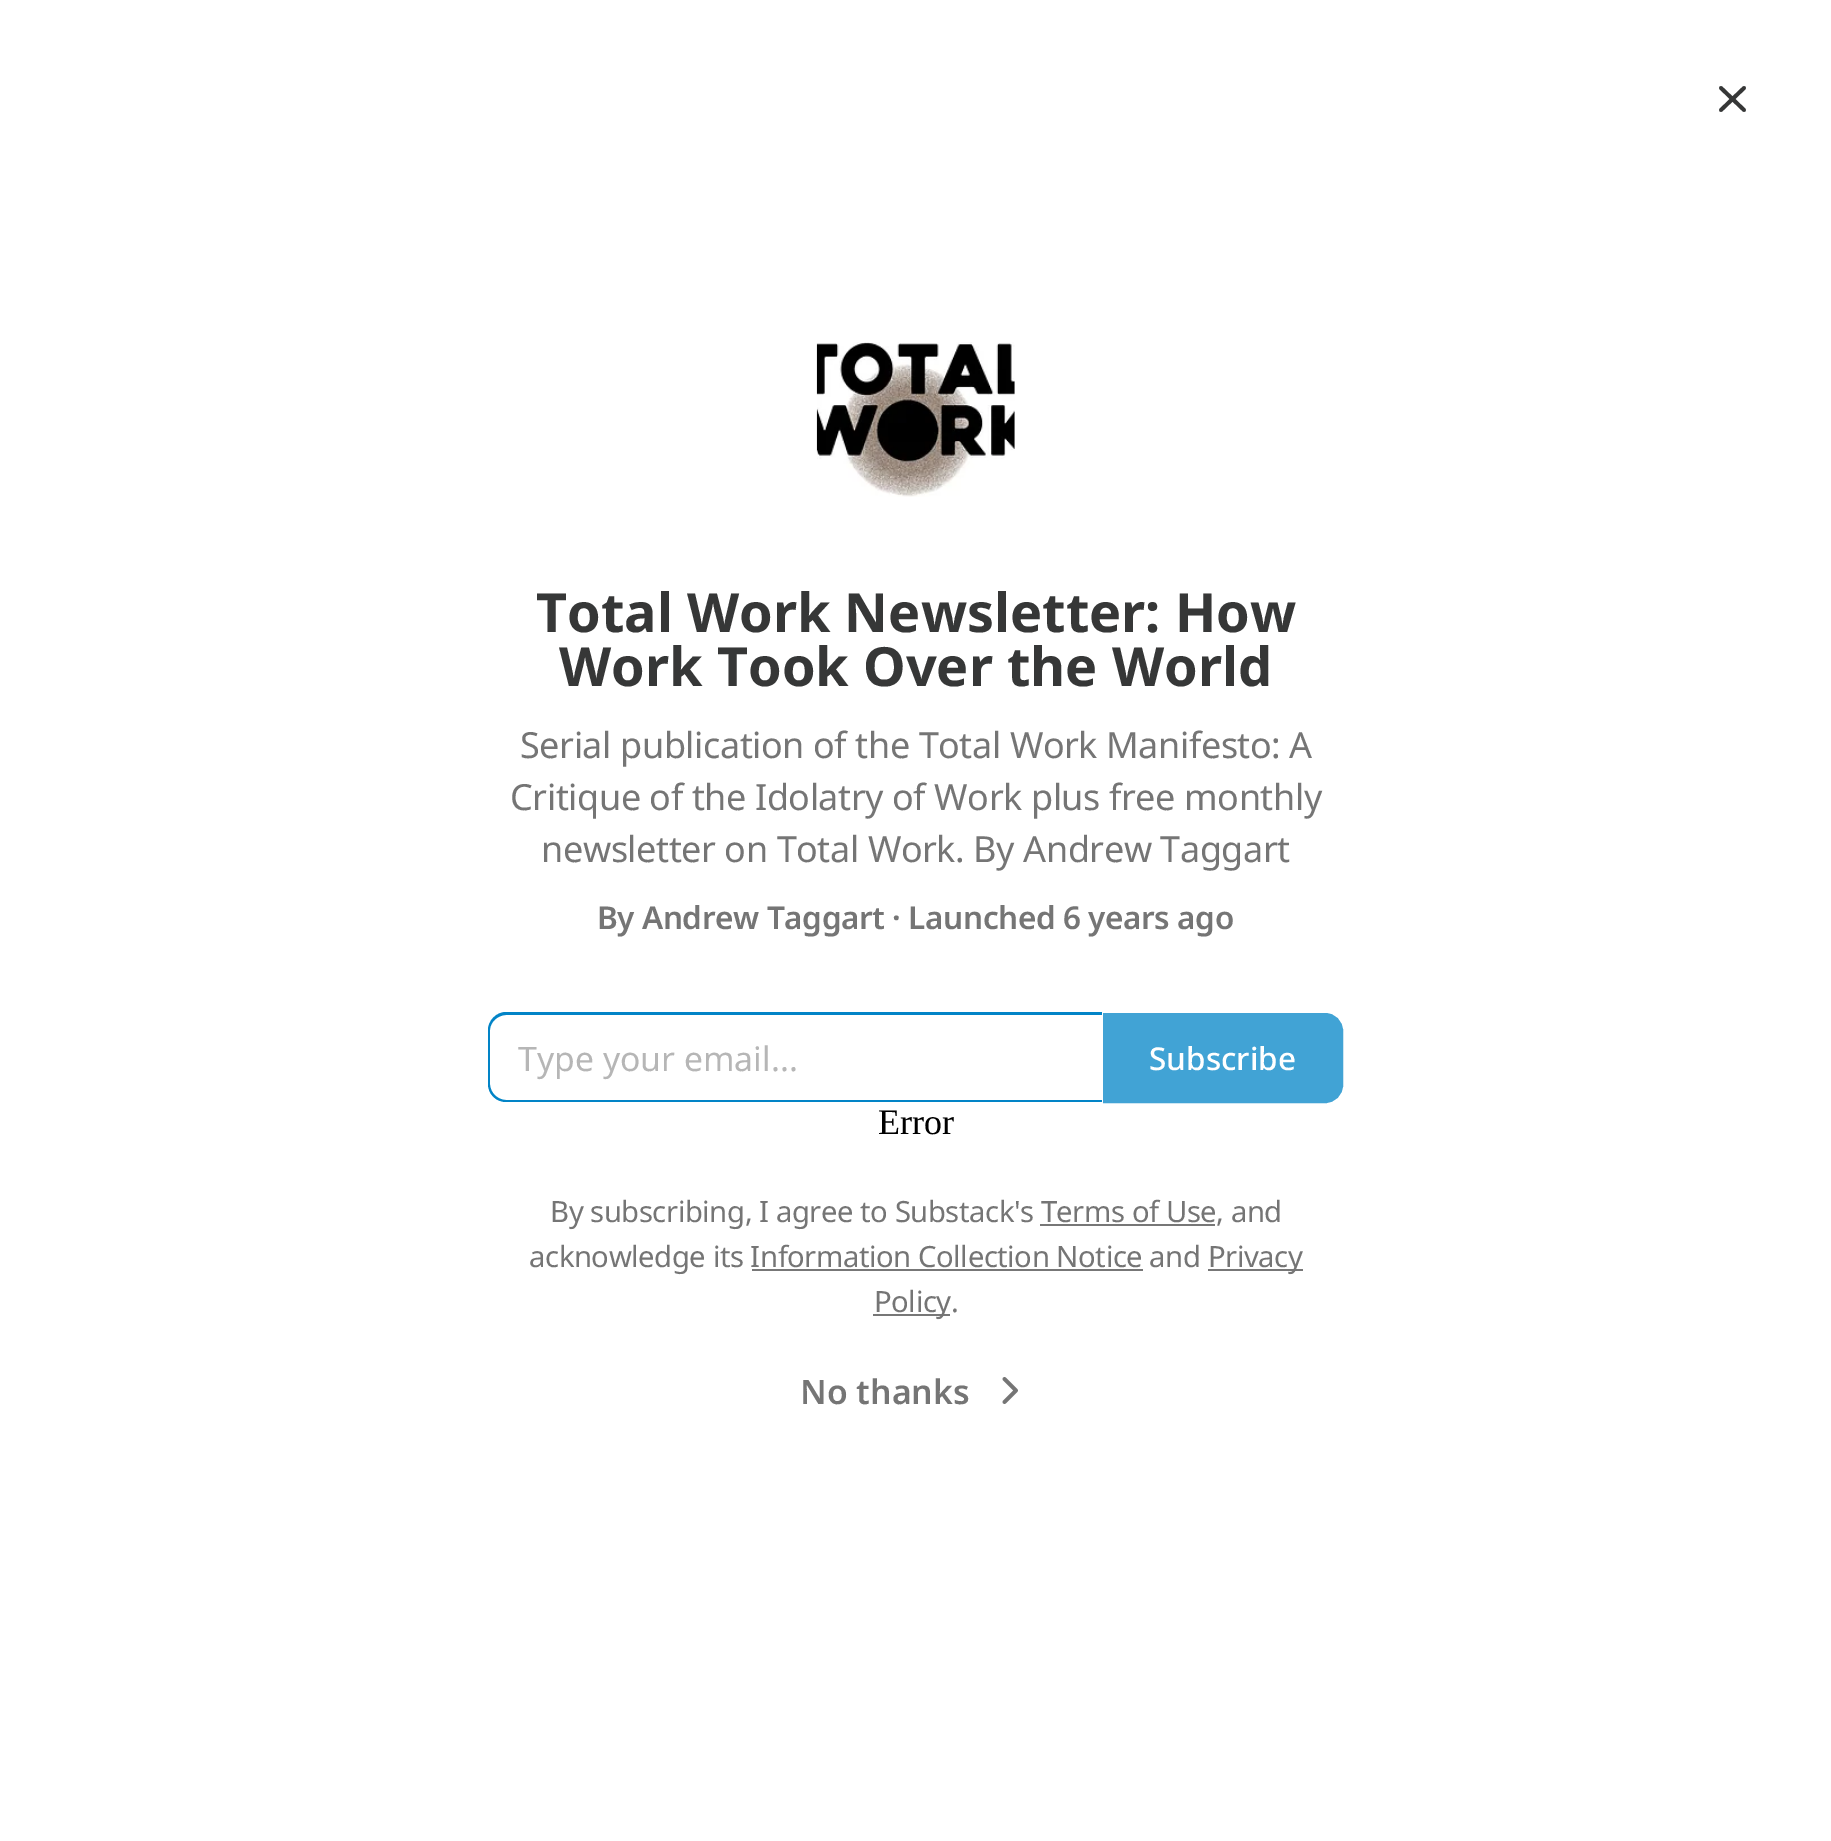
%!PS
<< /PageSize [1831 1841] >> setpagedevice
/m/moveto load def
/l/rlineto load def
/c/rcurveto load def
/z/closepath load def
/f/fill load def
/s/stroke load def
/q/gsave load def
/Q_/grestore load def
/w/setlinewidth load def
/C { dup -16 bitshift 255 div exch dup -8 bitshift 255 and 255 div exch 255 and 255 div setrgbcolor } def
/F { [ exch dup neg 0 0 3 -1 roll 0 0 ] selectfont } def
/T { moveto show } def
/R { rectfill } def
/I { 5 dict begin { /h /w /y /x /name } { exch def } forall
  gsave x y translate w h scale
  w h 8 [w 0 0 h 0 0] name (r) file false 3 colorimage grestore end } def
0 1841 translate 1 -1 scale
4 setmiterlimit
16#FFFFFF C
0 0 1831 1841 R
16#363737 C
3.8 w
1 setlinecap
1 setlinejoin
1744 88 m -23 22 l 1721 88 m 23 22 l s
(1.rgb) 816 342 199 155 I
/NotoSans-Bold 54 F
(Total Work Newsletter: How) 536 632 T
(Work Took Over the World) 559 686 T
/NotoSans-Regular 36 F
16#757575 C
520 758 m -.43 0 (Serial publication of the Total Work Manifesto: A) ashow
510 810 m -.43 0 (Critique of the Idolatry of Work plus free monthly) ashow
541 862 m -.43 0 (newsletter on Total Work. By Andrew Taggart) ashow
/NotoSans-SemiBold 31.5 F
597 929 m -.4 0 (By Andrew Taggart · Launched 6 years ago) ashow
16#0284C7 C
506 1012 m 596 0 l 0 90 l -596 0 l -10 0 -18 -8 -18 -18 c 0 -54 l 0 -9 8 -18 18 -18 c z 506 1015 m 596 0 l 0 85 l -596 0 l -8 0 -16 -7 -16 -16 c 0 -54 l 0 -8 8 -15 16 -15 c z eofill
q
518 1035 558 45 rectclip
/NotoSans-Regular 33.75 F
16#B6B6B6 C
(Type your email...) 518 1071 T
Q_
16#41A3D5 C
1104 1014 m 221 0 l 9.5 0 17 7.5 17 17 c 0 54 l 0 9.5 -7.5 17 -17 17 c -221 0 l z q f Q_
2 w
0 setlinecap
0 setlinejoin
s
/NotoSans-Medium 31.5 F
16#FFFFFF C
(Subscribe) 1149 1070 T
/LiberationSerif-Regular 36 F
16#000000 C
(Error) 878 1134 T
/NotoSans-Regular 29.25 F
16#757575 C
550 1222 m -.45 0 (By subscribing, I agree to Substack's Terms of Use, and) ashow
16#777777 C
1040 1224 175 2 R
16#757575 C
529 1267 m -.45 0 (acknowledge its Information Collection Notice and) ashow
16#777777 C
1208 1269 95 2 R
16#757575 C
1208 1267 m -.45 0 (Privacy) ashow
16#777777 C
752 1269 391 2 R
873 1314 77 2 R
16#757575 C
874 1312 m -.45 0 (Policy.) ashow
/NotoSans-SemiBold 33.75 F
(No thanks) 800 1404 T
3.8 w
1 setlinecap
1 setlinejoin
1004.5 1402 m 11.5 -11.5 l -11.5 -11.5 l s
showpage
